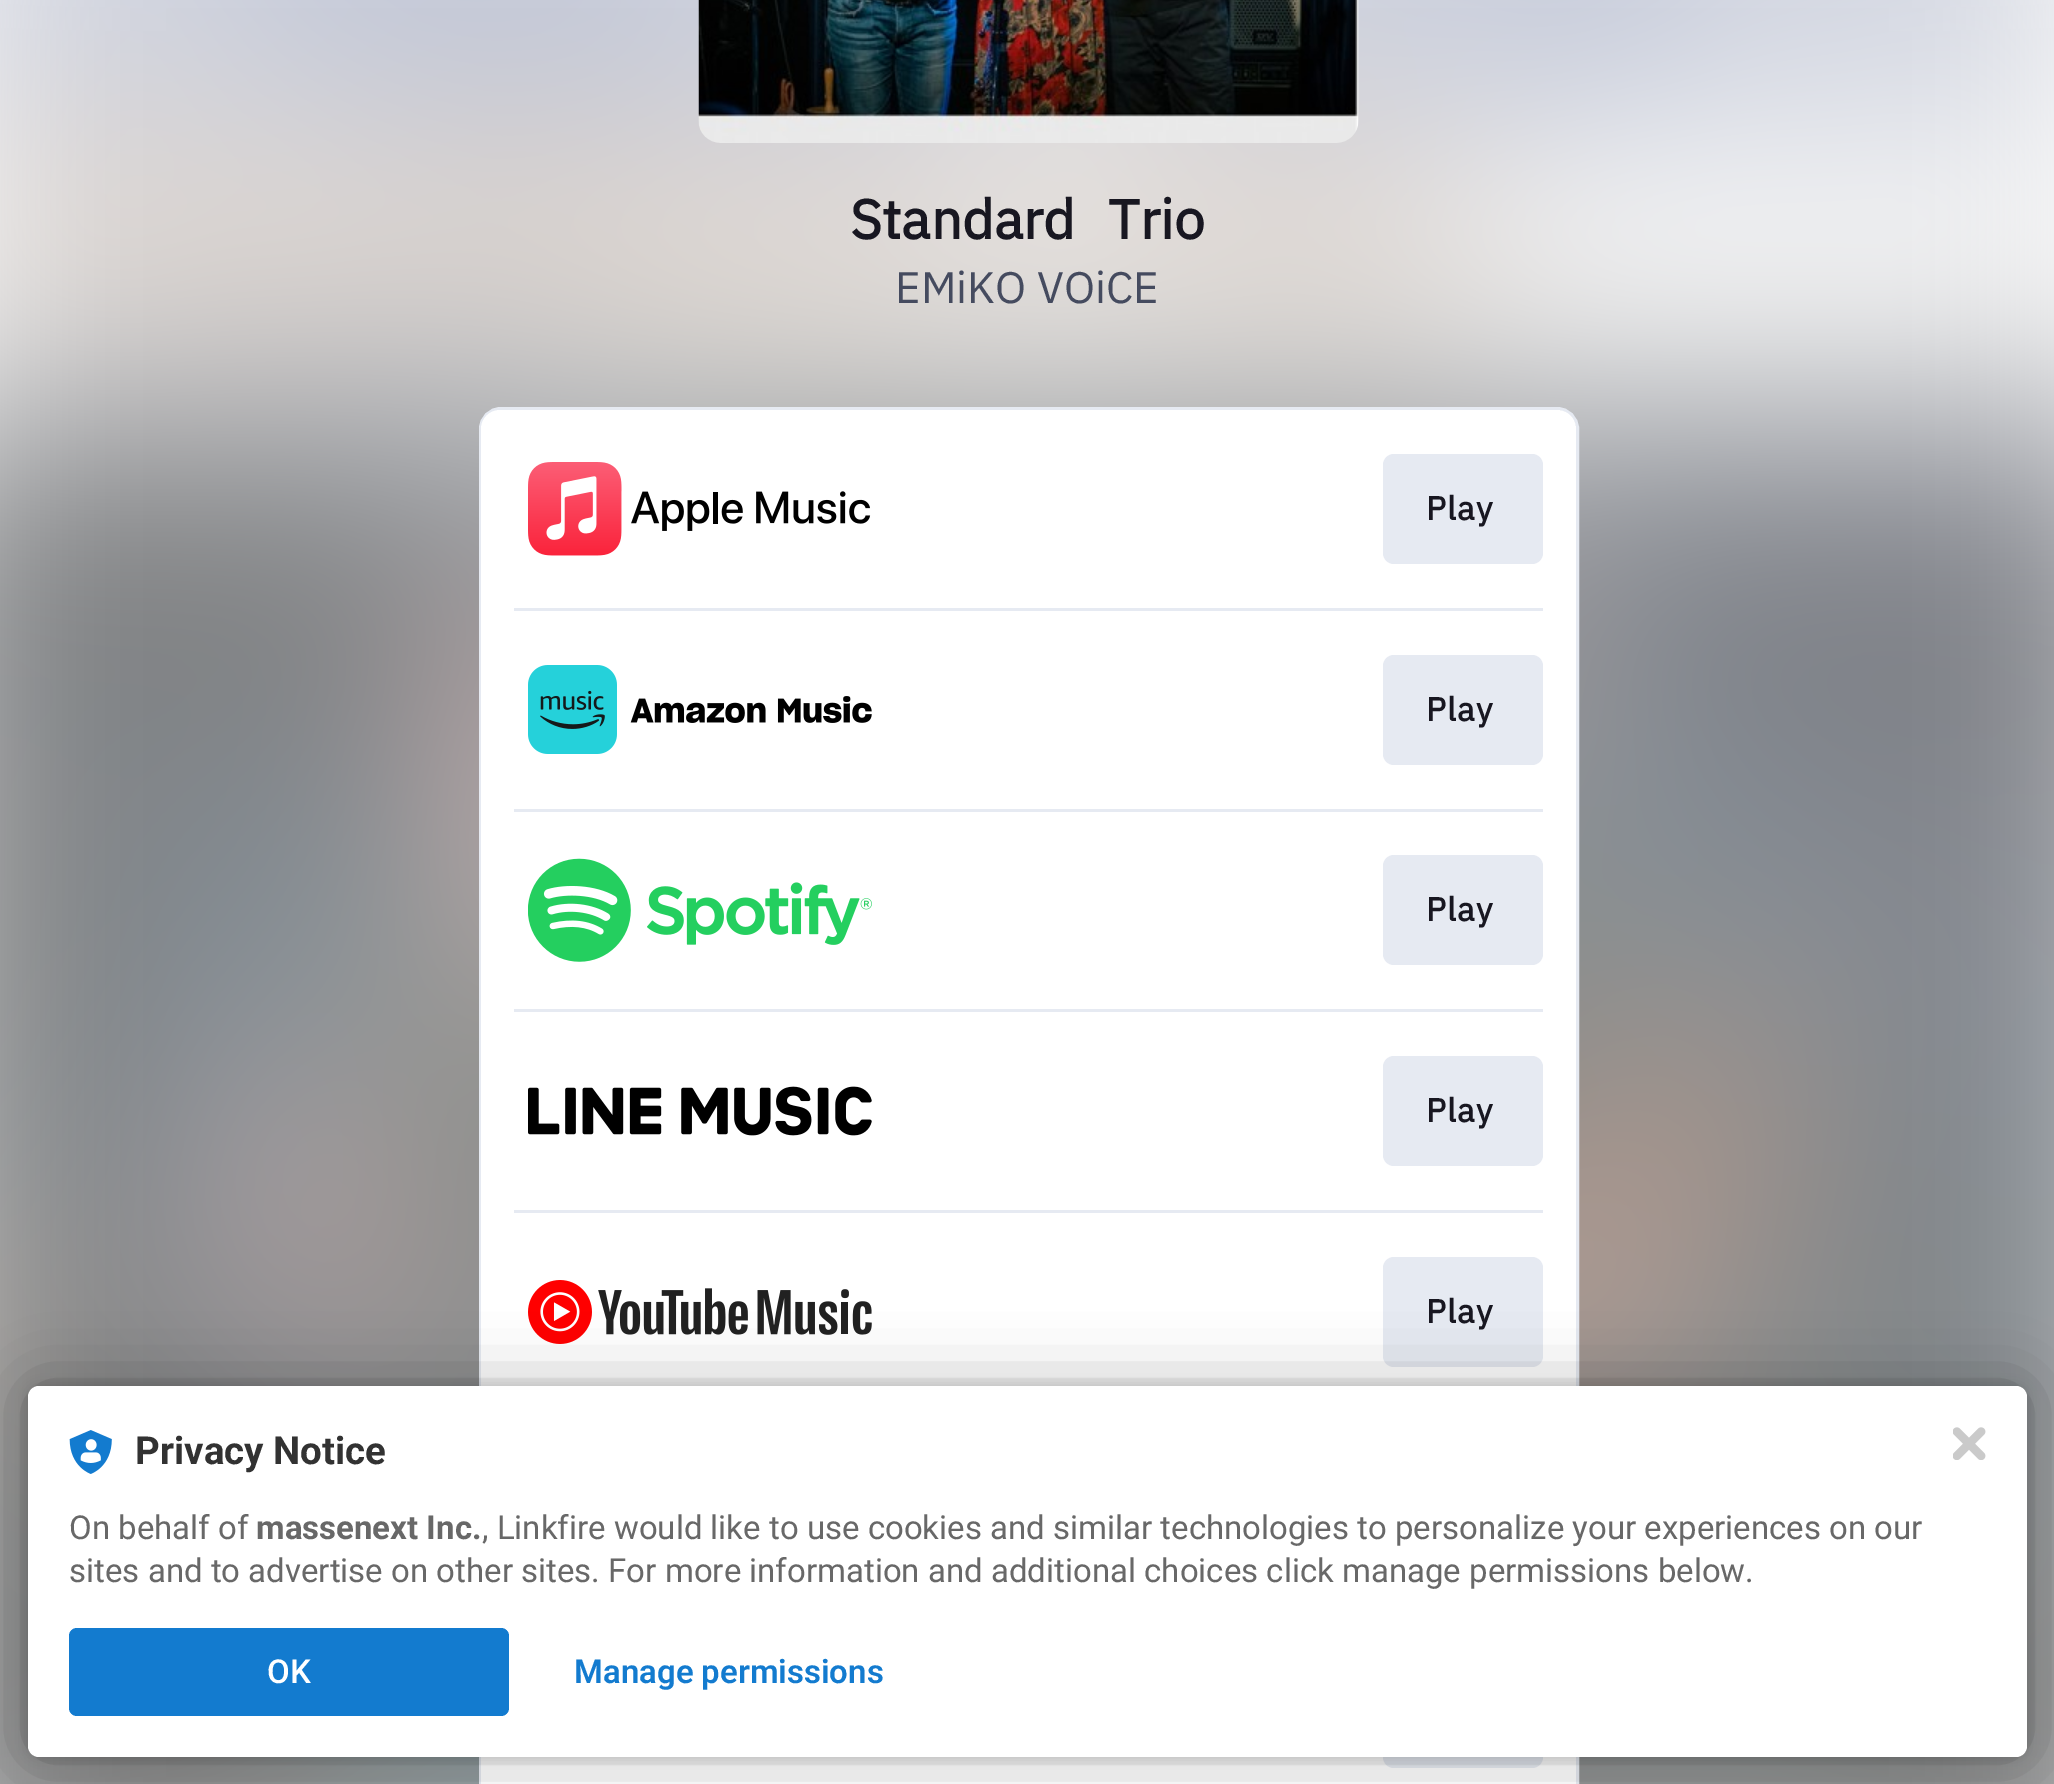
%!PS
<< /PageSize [2054 1784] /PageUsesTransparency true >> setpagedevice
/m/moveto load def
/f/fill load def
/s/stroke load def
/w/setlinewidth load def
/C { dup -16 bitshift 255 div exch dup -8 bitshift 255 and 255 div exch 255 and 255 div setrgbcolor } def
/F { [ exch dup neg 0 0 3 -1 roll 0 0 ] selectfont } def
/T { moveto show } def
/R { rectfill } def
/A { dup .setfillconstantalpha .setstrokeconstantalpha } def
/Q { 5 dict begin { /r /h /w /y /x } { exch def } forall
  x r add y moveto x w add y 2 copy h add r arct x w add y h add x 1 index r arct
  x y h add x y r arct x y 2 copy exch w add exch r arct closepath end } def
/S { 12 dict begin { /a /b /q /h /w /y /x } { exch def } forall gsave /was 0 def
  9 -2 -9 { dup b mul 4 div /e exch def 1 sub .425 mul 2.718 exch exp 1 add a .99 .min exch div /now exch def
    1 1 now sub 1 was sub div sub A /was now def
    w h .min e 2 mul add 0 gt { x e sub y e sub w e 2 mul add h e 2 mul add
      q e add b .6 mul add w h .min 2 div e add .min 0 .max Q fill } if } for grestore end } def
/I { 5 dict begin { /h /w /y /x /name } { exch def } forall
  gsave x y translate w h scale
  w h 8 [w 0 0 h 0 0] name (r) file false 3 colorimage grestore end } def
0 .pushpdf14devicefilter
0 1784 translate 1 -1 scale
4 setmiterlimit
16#FFFFFF C
0 0 2054 1784 R
(1.rgb) 0 0 2054 1784 I
(2.rgb) 698 0 661 143 I
/IBMPlexSans-Bold 55 F
16#181721 C
850 239 m 20 0 32 (Standard Trio) widthshow
/IBMPlexSans-Regular 44 F
16#454B5F C
(EMiKO VOiCE) 895 303 T
16#E6EAF2 C
3 w
480.5 408.5 1097 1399 20.5 Q s
16#FFFFFF C
481 410 1095 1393 19 Q f
(3.rgb) 528 462 343 94 I
16#E6EAF2 C
1383 454 160 110 11 Q f
/IBMPlexSans-Bold 33 F
16#181721 C
1426 520 m 1 0 (Play) ashow
16#E6EAF2 C
514 608 1029 3 R
(4.rgb) 528 665 344 89 I
1383 655 160 110 11 Q f
16#181721 C
1426 721 m 1 0 (Play) ashow
16#E6EAF2 C
514 809 1029 3 R
(5.rgb) 528 858 344 104 I
1383 855 160 110 11 Q f
16#181721 C
1426 921 m 1 0 (Play) ashow
16#E6EAF2 C
514 1009 1029 3 R
(6.rgb) 528 1086 344 50 I
1383 1056 160 110 11 Q f
16#181721 C
1426 1122 m 1 0 (Play) ashow
16#E6EAF2 C
514 1210 1029 3 R
(7.rgb) 528 1280 344 64 I
1383 1257 160 110 11 Q f
16#181721 C
1426 1323 m 1 0 (Play) ashow
16#E6EAF2 C
1383 1658 160 110 11 Q f
16#000000 C
28 1386 1999 371 11 5.5 .12 S
28 1386 1999 371 11 33 .3 S
16#FFFFFF C
28 1386 1999 371 11 Q f
(8.rgb) 69 1430 43 44 I
/Roboto-Bold 38.5 F
16#323232 C
(Privacy Notice) 135 1464 T
/Roboto-Regular 33 F
16#686868 C
(On behalf of) 69 1539 T
/Roboto-Bold 33 F
(massenext Inc.) 256 1539 T
/Roboto-Regular 33 F
(, Linkfire would like to use cookies and similar technologies to personalize your experiences on our) 482 1539 T
(sites and to advertise on other sites. For more information and additional choices click manage permissions below.) 69 1582 T
16#137BCF C
69 1628 440 88 8 Q f
/Roboto-Medium 33 F
16#FFFFFF C
(OK) 267 1683 T
/Roboto-SemiBold 33 F
16#137BCF C
(Manage permissions) 574 1683 T
(9.rgb) 1953 1427 33 33 I
.poppdf14devicefilter showpage
